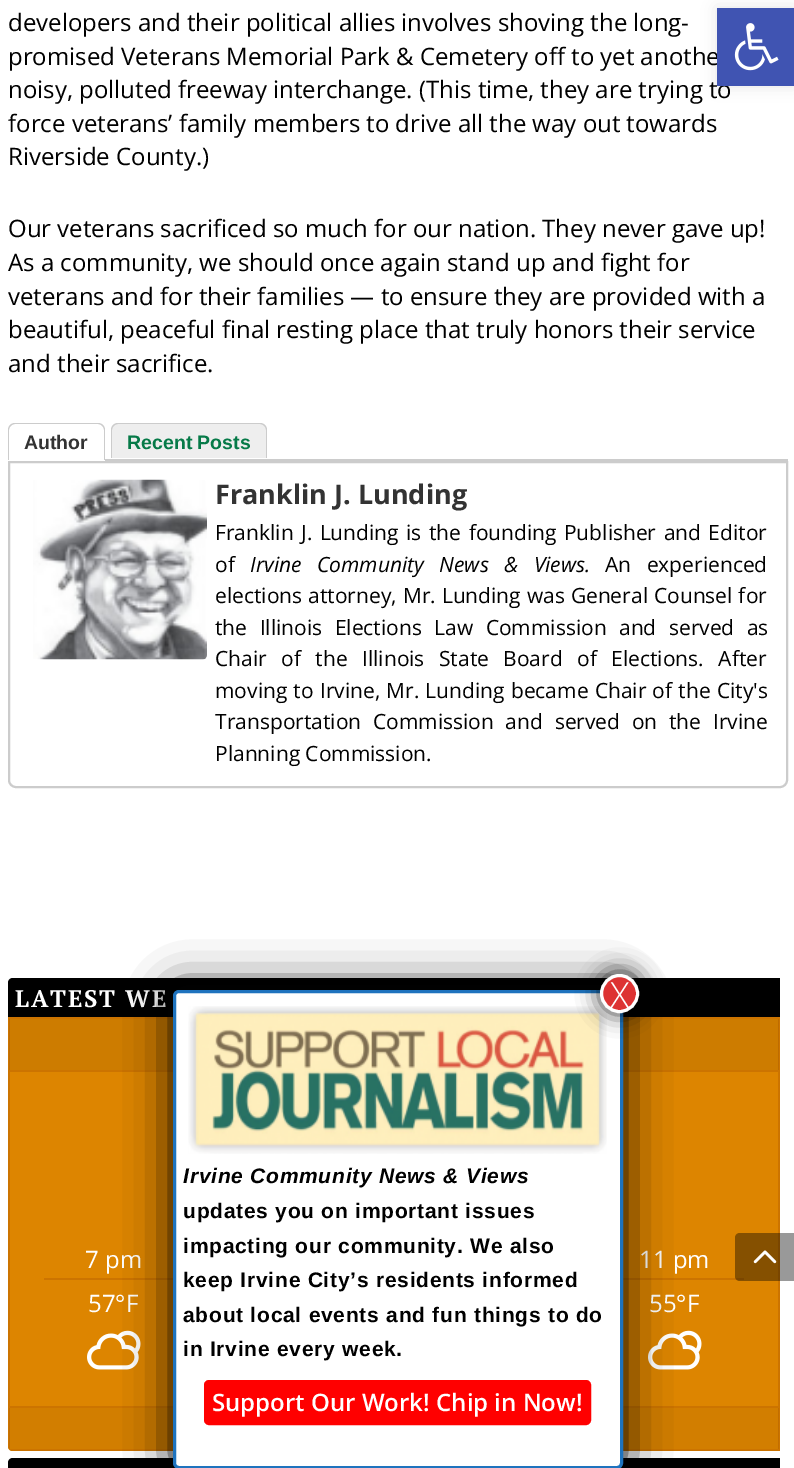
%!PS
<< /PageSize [794 1468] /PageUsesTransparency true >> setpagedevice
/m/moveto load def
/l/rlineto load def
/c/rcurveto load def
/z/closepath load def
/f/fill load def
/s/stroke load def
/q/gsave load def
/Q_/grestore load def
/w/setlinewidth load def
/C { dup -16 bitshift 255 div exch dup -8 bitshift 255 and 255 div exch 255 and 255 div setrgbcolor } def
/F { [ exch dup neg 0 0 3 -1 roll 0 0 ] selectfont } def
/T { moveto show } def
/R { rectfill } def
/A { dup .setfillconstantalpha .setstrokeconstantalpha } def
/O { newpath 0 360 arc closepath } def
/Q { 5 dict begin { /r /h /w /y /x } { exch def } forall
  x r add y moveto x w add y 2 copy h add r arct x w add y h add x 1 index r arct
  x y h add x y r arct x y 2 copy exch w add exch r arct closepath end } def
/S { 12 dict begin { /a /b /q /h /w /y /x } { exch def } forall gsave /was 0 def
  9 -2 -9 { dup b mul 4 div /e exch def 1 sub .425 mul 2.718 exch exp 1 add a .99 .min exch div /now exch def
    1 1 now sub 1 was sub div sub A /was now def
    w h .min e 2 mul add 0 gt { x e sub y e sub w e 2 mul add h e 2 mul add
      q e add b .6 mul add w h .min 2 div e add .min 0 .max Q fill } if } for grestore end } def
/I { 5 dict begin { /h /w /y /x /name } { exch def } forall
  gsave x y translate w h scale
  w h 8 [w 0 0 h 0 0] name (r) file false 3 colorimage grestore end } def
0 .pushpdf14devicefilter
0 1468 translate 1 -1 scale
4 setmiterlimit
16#FFFFFF C
0 0 794 1468 R
16#000000 C
717 8 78 78 0 7.5 .1 S
/OpenSans-Regular 24 F
(promised Veterans Memorial Park & Cemetery off to yet anothe) 8 65 T
(noisy, polluted freeway interchange. \(This time, they are trying to) 8 98 T
16#4054B2 C
717 8 77 78 R
(1.rgb) 734 23 45 48 I
16#000000 C
(developers and their political allies involves shoving the long-) 8 31 T
(force veterans’ family members to drive all the way out towards) 8 132 T
(Riverside County.\)) 8 165 T
(Our veterans sacrificed so much for our nation. They never gave up!) 8 237 T
(As a community, we should once again stand up and fight for) 8 271 T
(veterans and for their families — to ensure they are provided with a) 8 305 T
(beautiful, peaceful final resting place that truly honors their service) 8 338 T
(and their sacrifice.) 8 372 T
16#CCCCCC C
105 459 683 2 R
15 423 m 83 0 l 4 0 7 3 7 7 c 0 30 l -97 0 l 0 -30 l 0 -4 3 -7 7 -7 c z 15 424 m 83 0 l 3 0 6 3 6 6 c 0 30 l -95 0 l 0 -30 l 0 -3 3 -6 6 -6 c z eofill
/LiberationSans-Bold 19.5 F
16#333333 C
(Author) 24 449 T
16#EEEEEE C
119 423 m 140 0 l 4.5 0 8 3.5 8 8 c 0 27 l -156 0 l 0 -27 l 0 -4.5 3.5 -8 8 -8 c z f
16#CCCCCC C
118 423 m 142 0 l 4 0 7 3 7 7 c 0 28 l -156 0 l 0 -28 l 0 -4 3 -7 7 -7 c z 118 424 m 142 0 l 3 0 6 3 6 6 c 0 28 l -154 0 l 0 -28 l 0 -3 3 -6 6 -6 c z eofill
16#067A48 C
(Recent Posts) 127 449 T
16#CCCCCC C
2 w
9 462 m 778 0 l 0 318 l 0 4 -3 7 -7 7 c -764 0 l -4 0 -7 -3 -7 -7 c z s
(2.rgb) 33 479 174 181 I
/OpenSans-Bold 27 F
16#333333 C
(Franklin J. Lunding) 215 504 T
/OpenSans-Regular 21 F
16#000000 C
215 540 m 2 0 32 (Franklin J. Lunding is the founding Publisher and Editor) widthshow
(of) 215 572 T
/OpenSans-Italic 21 F
250 572 m 10 0 32 (Irvine Community News & Views.) widthshow
/OpenSans-Regular 21 F
605 572 m 10 0 32 (An experienced) widthshow
215 603 m .5 0 32 (elections attorney, Mr. Lunding was General Counsel for) widthshow
215 635 m 7 0 32 (the Illinois Elections Law Commission and served as) widthshow
215 666 m 9 0 32 (Chair of the Illinois State Board of Elections. After) widthshow
215 698 m .75 0 32 (moving to Irvine, Mr. Lunding became Chair of the City's) widthshow
215 729 m 6.25 0 32 (Transportation Commission and served on the Irvine) widthshow
(Planning Commission.) 215 761 T
13 978 m 767 0 l 0 39 l -772 0 l 0 -34 l 0 -3 2 -5 5 -5 c z f
/PTSerif-Bold 24 F
16#FFFFFF C
15 1007 m 1.75 0 (LATEST WE) ashow
16#DD8500 C
8 1017 m 772 0 l 0 434 l -767 0 l -3 0 -5 -2 -5 -5 c z f
16#CC7400 C
8 1017 m 0 429 l 0 3 2 5 5 5 c 767 0 l 0 -434 l z 10 1019 m 0 430 l 768 0 l 0 -430 l z eofill
0.07 A
16#000000 C
9 1019 770 51 R
1 A
16#CC7400 C
9 1070 770 2 R
44 1278 700 2 R
/OpenSans-Regular 24 F
16#FFFFFF C
(7 pm) 85 1268 T
(11 pm) 639 1268 T
(57°F) 88 1312 T
(3.rgb) 87 1330 54 40 I
(55°F) 649 1312 T
(3.rgb) 648 1330 54 40 I
0.05 A
16#000000 C
9 1408 770 41 R
1 A
16#CC7400 C
9 1406 770 2 R
16#000000 C
13 1458 m 767 0 l 0 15 l -772 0 l 0 -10 l 0 -3 2 -5 5 -5 c z f
16#020202 C
173 990 450 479 6 22.5 1 S
16#FFFFFF C
174.5 991.5 447 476 4.5 Q q f Q_
16#1E73BE C
3 w
s
(4.rgb) 188 1006 419 148 I
16#020202 C
599 972 42 42 21 11 .75 S
16#DD3333 C
619.5 993.5 18 O q f Q_
16#FFFFFF C
s
/OpenSans-Light 36 F
(X) 610 1008 T
/LiberationSans-BoldItalic 21 F
16#000000 C
183 1183 m .75 0 (Irvine Community News & Views) ashow
/LiberationSans-Bold 21 F
183 1218 m .75 0 (updates you on important issues) ashow
183 1253 m .75 0 (impacting our community. We also) ashow
183 1287 m .75 0 (keep Irvine City’s residents informed) ashow
183 1322 m .75 0 (about local events and fun things to do) ashow
183 1356 m .75 0 (in Irvine every week.) ashow
16#FF0000 C
205 1381 385 43 4 Q q f Q_
2 w
s
/OpenSans-SemiBold 24 F
16#FFFFFF C
(Support Our Work! Chip in Now!) 212 1411 T
0.4 A
16#000000 C
740 1233 m 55 0 l 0 48 l -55 0 l -3 0 -5 -2 -5 -5 c 0 -38 l 0 -3 2 -5 5 -5 c z f
1 A
(5.rgb) 753 1250 24 14 I
.poppdf14devicefilter showpage
